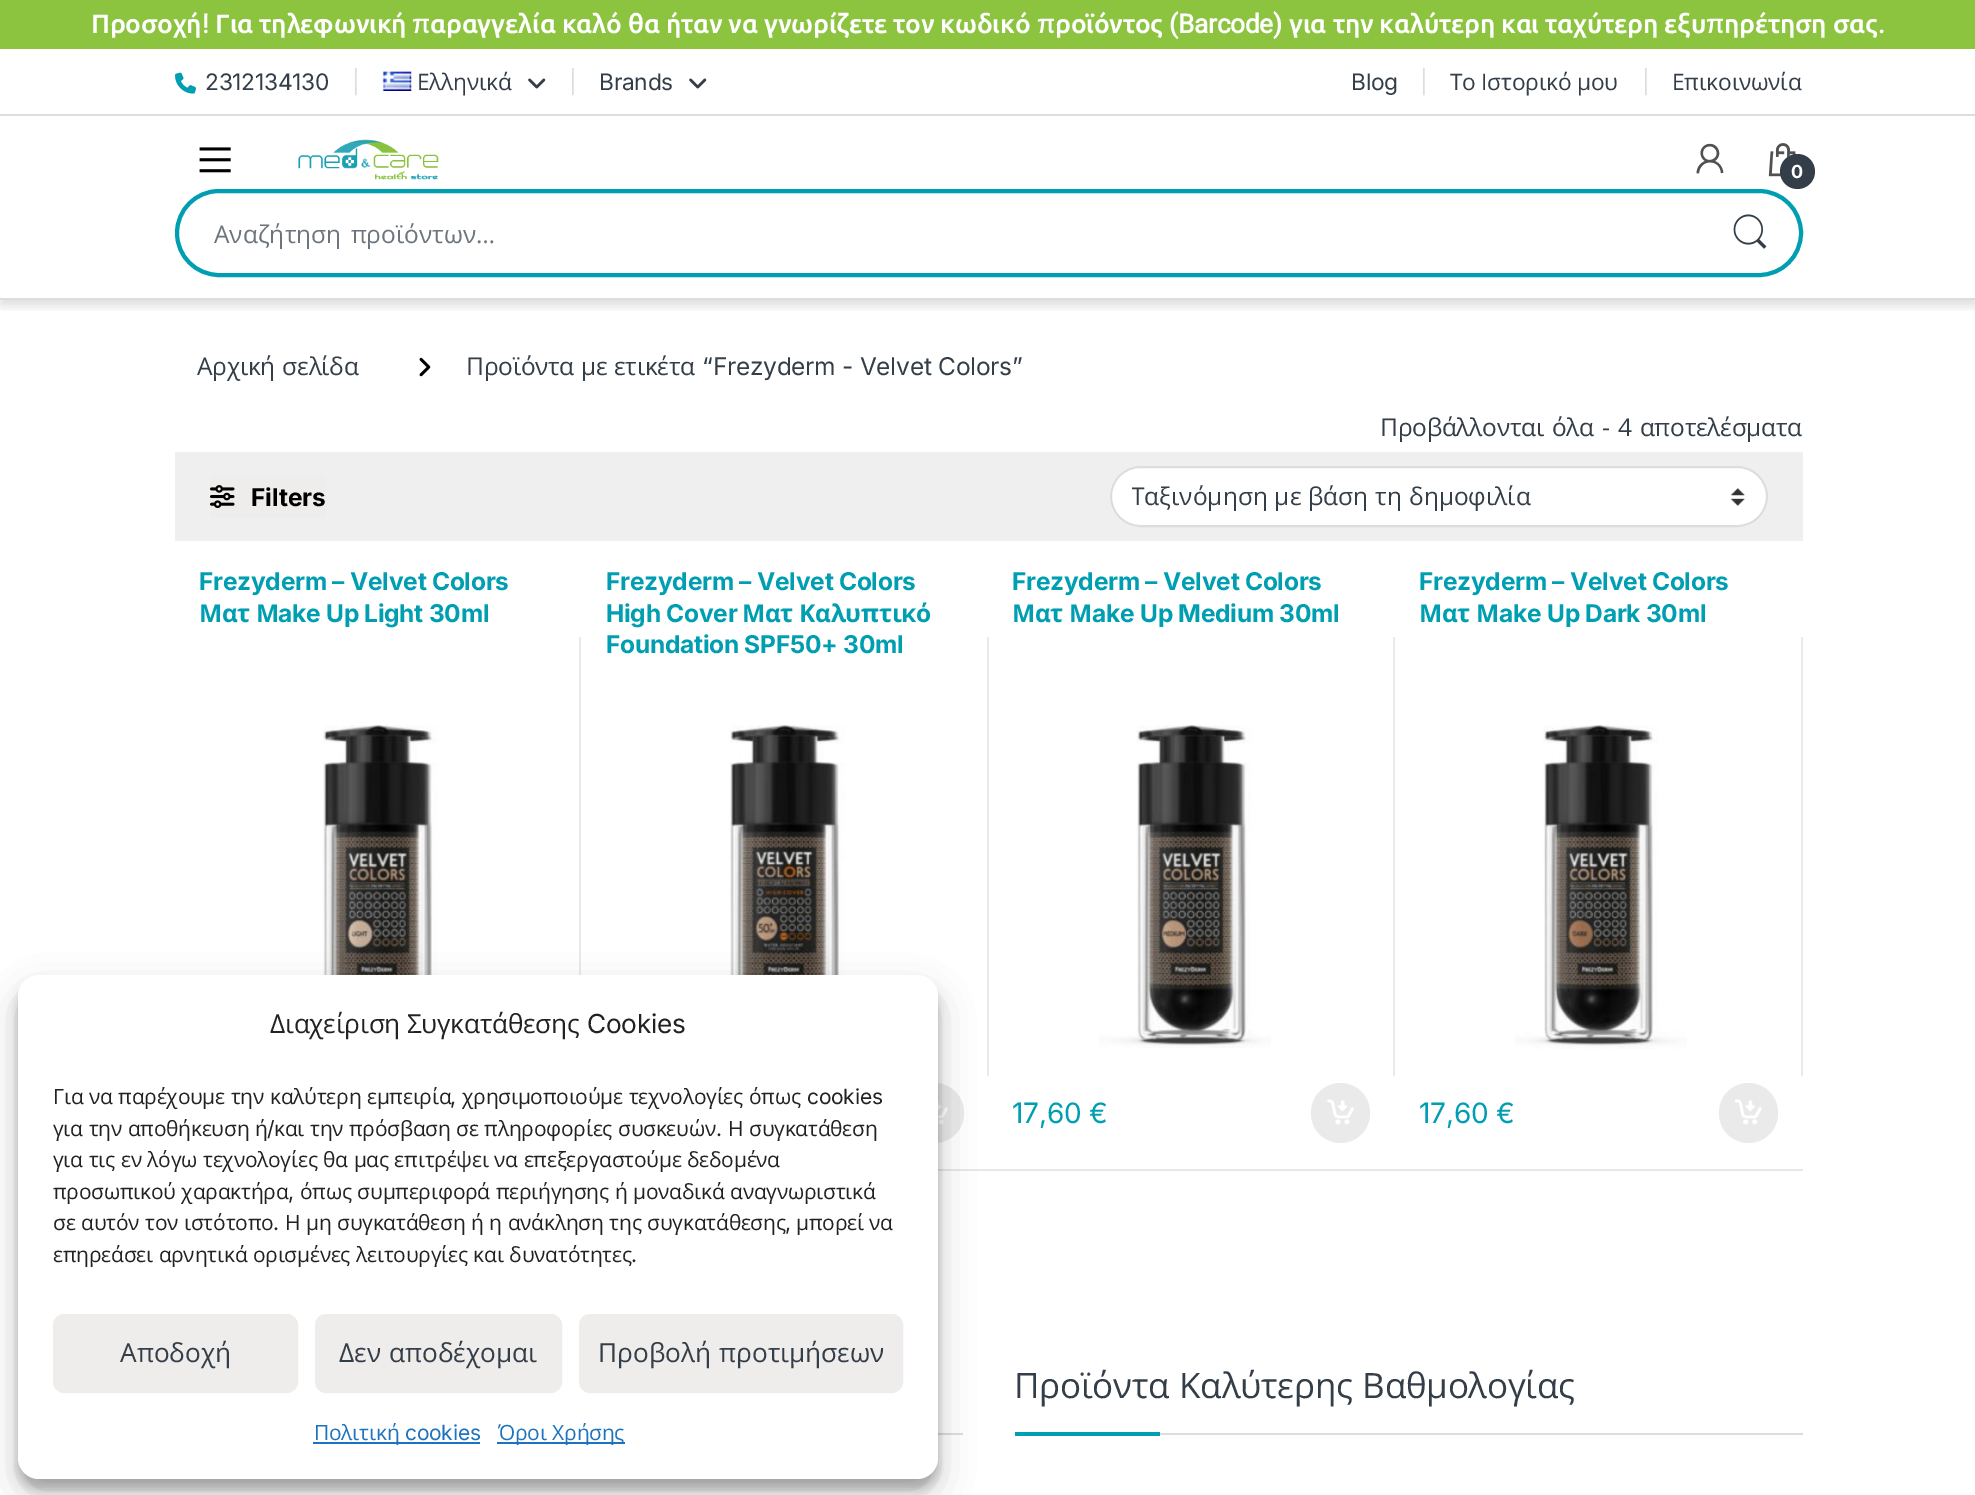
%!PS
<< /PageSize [1975 1495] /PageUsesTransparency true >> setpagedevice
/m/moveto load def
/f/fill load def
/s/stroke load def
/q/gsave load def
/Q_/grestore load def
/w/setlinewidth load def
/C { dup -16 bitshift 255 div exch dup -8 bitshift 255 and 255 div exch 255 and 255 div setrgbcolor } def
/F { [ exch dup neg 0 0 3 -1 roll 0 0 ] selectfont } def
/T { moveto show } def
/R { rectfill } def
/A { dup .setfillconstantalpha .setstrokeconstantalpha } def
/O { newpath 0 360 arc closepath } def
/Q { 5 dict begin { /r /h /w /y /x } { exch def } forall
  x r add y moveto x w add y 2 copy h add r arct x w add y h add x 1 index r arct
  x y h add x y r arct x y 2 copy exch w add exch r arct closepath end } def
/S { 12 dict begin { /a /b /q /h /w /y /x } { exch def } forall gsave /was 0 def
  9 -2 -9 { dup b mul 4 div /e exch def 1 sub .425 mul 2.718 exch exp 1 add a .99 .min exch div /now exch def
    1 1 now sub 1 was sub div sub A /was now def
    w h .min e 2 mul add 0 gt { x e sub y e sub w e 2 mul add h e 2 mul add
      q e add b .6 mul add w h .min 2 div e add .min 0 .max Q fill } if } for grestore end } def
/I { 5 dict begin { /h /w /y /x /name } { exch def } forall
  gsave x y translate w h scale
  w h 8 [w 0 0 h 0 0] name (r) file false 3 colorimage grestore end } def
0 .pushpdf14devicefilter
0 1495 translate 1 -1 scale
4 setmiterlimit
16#FFFFFF C
0 0 1975 1495 R
16#8CC440 C
0 0 1975 49 R
/Ubuntu-Bold 26.25 F
16#FFFFFF C
91 33 m -.25 0 (Προσοχή) ashow
/Roboto-Bold 26.25 F
202 33 m -.25 0 (!) ashow
/Ubuntu-Bold 26.25 F
215 33 m .25 0 32 -.25 0 (Για τηλεφωνική) awidthshow
/Oxygen-Bold 26.25 F
412 33 m -.25 0 (π) ashow
/Ubuntu-Bold 26.25 F
430 33 m .25 0 32 -.25 0 (αραγγελία καλό θα ήταν να γνωρίζετε τον κωδικό) awidthshow
/Oxygen-Bold 26.25 F
1037 33 m -.25 0 (π) ashow
/Ubuntu-Bold 26.25 F
1055 33 m -.25 0 (ροϊόντος) ashow
/Roboto-Bold 26.25 F
1169 33 m -.25 0 (\(Barcode\)) ashow
/Ubuntu-Bold 26.25 F
1289 33 m .25 0 32 -.25 0 (για την καλύτερη και ταχύτερη εξυ) awidthshow
/Oxygen-Bold 26.25 F
1706 33 m -.25 0 (π) ashow
/Ubuntu-Bold 26.25 F
1724 33 m .25 0 32 -.25 0 (ηρέτηση σας) awidthshow
/Roboto-Bold 26.25 F
1878 33 m -.25 0 (.) ashow
16#DDDDDD C
0 114 1975 2 R
(1.rgb) 175 72 21 22 I
/Inter-Regular 22.75 F
16#333E48 C
205 90 m -.25 0 (2312134130) ashow
16#DDDDDD C
352 90 m -.25 0 (|) ashow
(2.rgb) 382 71 30 20 I
/OpenSans-Regular 22.75 F
16#333E48 C
417 90 m -.25 0 (Ελληνικά) ashow
(3.rgb) 528 78 18 11 I
/Inter-Regular 22.75 F
16#DDDDDD C
569 90 m -.25 0 (|) ashow
16#333E48 C
599 90 m -.25 0 (Brands) ashow
(3.rgb) 689 78 18 11 I
1351 90 m -.25 0 (Blog) ashow
16#DDDDDD C
1420 90 m -.25 0 (|) ashow
/OpenSans-Regular 22.75 F
16#333E48 C
1450 90 m -.25 0 (Το Ιστορικό μου) ashow
/Inter-Regular 22.75 F
16#DDDDDD C
1642 90 m -.25 0 (|) ashow
/OpenSans-Regular 22.75 F
16#333E48 C
1672 90 m -.25 0 (Επικοινωνία) ashow
q
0 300 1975 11 rectclip
16#000000 C
0 123 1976 183 0 5 .12 S
Q_
16#DDDDDD C
0 298 1975 2 R
(4.rgb) 199 147 32 26 I
(5.rgb) 298 139 141 41 I
(6.rgb) 1696 143 28 31 I
(7.rgb) 1768 143 28 34 I
16#333E48 C
1797.5 171.5 17.5 O f
/Inter-Bold 18 F
16#FFFFFF C
1791 178 m -.25 0 (0) ashow
16#009EB1 C
4 w
177 191 1624 84 42 Q s
/OpenSans-Regular 24.5 F
16#6C757D C
214 243 m 3 0 32 (Αναζήτηση προϊόντων…) widthshow
(8.rgb) 1733 214 34 35 I
16#333E48 C
197 375 m 1 0 32 -.25 0 (Αρχική σελίδα) awidthshow
(9.rgb) 419 357 12 20 I
466 375 m -.25 0 (Προϊόντα) ashow
581 375 m -.25 0 (με) ashow
614 375 m -.25 0 (ετικέτα) ashow
/Inter-Regular 24.5 F
702 375 m -.25 0 (“Frezyderm - Velvet Colors”) ashow
/OpenSans-Regular 24.5 F
1380 436 m 2 0 32 -.25 0 (Προβάλλονται όλα - 4 αποτελέσματα) awidthshow
16#EFEFEF C
175 452 1628 89 R
16#EFECEC C
210 476 116 42 R
(10.rgb) 210 485 25 23 I
/Inter-Bold 24.5 F
16#000000 C
(Filters) 251 506 T
16#FFFFFF C
1110 466 658 61 30.5 Q f
(11.rgb) 1730 488 15 18 I
16#DDDDDD C
2 w
1111 467 656 59 29.5 Q s
q
1132 476 585 42 rectclip
/OpenSans-Regular 24.5 F
16#333E48 C
1131 505 m .5 0 32 (Ταξινόμηση με βάση τη δημοφιλία) widthshow
Q_
16#009EB1 C
199 590 m -.25 0 (Frezyderm – Velvet Colors) ashow
/OpenSans-Bold 24.5 F
199 622 m -.25 0 (Ματ) ashow
256 622 m -.25 0 (Μ) ashow
/Inter-Bold 24.5 F
278 622 m -.25 0 (ake Up Light 30ml) ashow
(12.rgb) 294 725 172 250 I
16#EAEAEA C
579 637 2 338 R
16#009EB1 C
606 590 m -.25 0 (Frezyderm – Velvet Colors) ashow
606 622 m -.25 0 (High Cover) ashow
/OpenSans-Bold 24.5 F
742 622 m -.25 0 (Ματ) ashow
799 622 m -.25 0 (Καλυπτικό) ashow
/Inter-Bold 24.5 F
606 653 m -.25 0 (Foundation SPF50+ 30ml) ashow
(13.rgb) 692 725 172 250 I
16#EAEAEA C
905 1083 59 60 29.5 Q f
(14.rgb) 938 1100 10 25 I
987 637 2 439 R
16#009EB1 C
1012 590 m -.25 0 (Frezyderm – Velvet Colors) ashow
/OpenSans-Bold 24.5 F
1012 622 m -.25 0 (Ματ) ashow
1069 622 m -.25 0 (Μ) ashow
/Inter-Bold 24.5 F
1092 622 m -.25 0 (ake Up Medium 30ml) ashow
(15.rgb) 1099 725 172 323 I
/Inter-Regular 28 F
1012 1123 m -.25 0 (17,60 €) ashow
16#EAEAEA C
1311 1083 59 60 29.5 Q f
(16.rgb) 1327 1099 27 26 I
1393 637 2 439 R
/Inter-Bold 24.5 F
16#009EB1 C
1419 590 m -.25 0 (Frezyderm – Velvet Colors) ashow
/OpenSans-Bold 24.5 F
1419 622 m -.25 0 (Ματ) ashow
1476 622 m -.25 0 (Μ) ashow
/Inter-Bold 24.5 F
1499 622 m -.25 0 (ake Up Dark 30ml) ashow
(17.rgb) 1515 725 172 324 I
/Inter-Regular 28 F
1419 1123 m -.25 0 (17,60 €) ashow
16#EAEAEA C
1719 1083 59 60 29.5 Q f
(18.rgb) 1735 1099 27 26 I
1801 637 2 439 R
16#E7E7E7 C
938 1169 865 2 R
16#DDDDDD C
1160 1433 643 2 R
/OpenSans-Regular 35 F
16#333E48 C
1014 1398 m 1 0 32 -.25 0 (Προϊόντα Καλύτερης Βαθμολογίας) awidthshow
16#009EB1 C
1015 1432 145 4 R
16#DDDDDD C
938 1433 25 2 R
16#000000 C
18 985 920 504 21 5 .23 S
18 992 920 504 21 17.5 .19 S
16#FFFFFF C
18 975 920 504 21 Q f
/OpenSans-Regular 26.25 F
16#222222 C
270 1033 m -.25 0 (Διαχείριση Συγκατάθεσης) ashow
/Inter-Regular 26.25 F
587 1033 m -.25 0 (Cookies) ashow
/OpenSans-Regular 21 F
53 1104 m .5 0 32 -.25 0 (Για να παρέχουμε την καλύτερη εμπειρία) awidthshow
/Inter-Regular 21 F
450 1104 m -.25 0 (,) ashow
/OpenSans-Regular 21 F
462 1104 m .5 0 32 -.25 0 (χρησιμοποιούμε τεχνολογίες όπως) awidthshow
/Inter-Regular 21 F
807 1104 m -.25 0 (cookies) ashow
/OpenSans-Regular 21 F
53 1136 m .5 0 32 -.25 0 (για την αποθήκευση ή) awidthshow
/Inter-Regular 21 F
267 1136 m -.25 0 (/) ashow
/OpenSans-Regular 21 F
274 1136 m .5 0 32 -.25 0 (και την πρόσβαση σε πληροφορίες συσκευών) awidthshow
/Inter-Regular 21 F
716 1136 m -.25 0 (.) ashow
/OpenSans-Regular 21 F
728 1136 m .5 0 32 -.25 0 (Η συγκατάθεση) awidthshow
53 1167 m .5 0 32 -.25 0 (για τις εν λόγω τεχνολογίες θα μας επιτρέψει να επεξεργαστούμε δεδομένα) awidthshow
53 1199 m .5 0 32 -.25 0 (προσωπικού χαρακτήρα) awidthshow
/Inter-Regular 21 F
288 1199 m -.25 0 (,) ashow
/OpenSans-Regular 21 F
300 1199 m .5 0 32 -.25 0 (όπως συμπεριφορά περιήγησης ή μοναδικά αναγνωριστικά) awidthshow
53 1230 m .5 0 32 -.25 0 (σε αυτόν τον ιστότοπο) awidthshow
/Inter-Regular 21 F
273 1230 m -.25 0 (.) ashow
/OpenSans-Regular 21 F
285 1230 m .5 0 32 -.25 0 (Η μη συγκατάθεση ή η ανάκληση της συγκατάθεσης) awidthshow
/Inter-Regular 21 F
785 1230 m -.25 0 (,) ashow
/OpenSans-Regular 21 F
796 1230 m .5 0 32 -.25 0 (μπορεί να) awidthshow
53 1262 m .5 0 32 -.25 0 (επηρεάσει αρνητικά ορισμένες λειτουργίες και δυνατότητες) awidthshow
/Inter-Regular 21 F
631 1262 m -.25 0 (.) ashow
16#EFECEC C
54 1315 243 77 10 Q q f Q_
s
/OpenSans-Regular 26.25 F
16#333E48 C
(Αποδοχή) 120 1362 T
16#EFECEC C
316 1315 245 77 10 Q q f Q_
s
16#333E48 C
339 1362 m 1 0 32 (Δεν αποδέχομαι) widthshow
16#EFECEC C
580 1315 322 77 10 Q q f Q_
s
16#333E48 C
598 1362 m 1 0 32 (Προβολή προτιμήσεων) widthshow
16#1E73BE C
313 1442 167 2 R
/OpenSans-Regular 21 F
314 1440 m -.25 0 (Πολιτική) ashow
/Inter-Regular 21 F
405 1440 m -.25 0 (cookies) ashow
497 1442 128 2 R
/OpenSans-Regular 21 F
498 1440 m .5 0 32 -.25 0 (Όροι Χρήσης) awidthshow
.poppdf14devicefilter showpage
